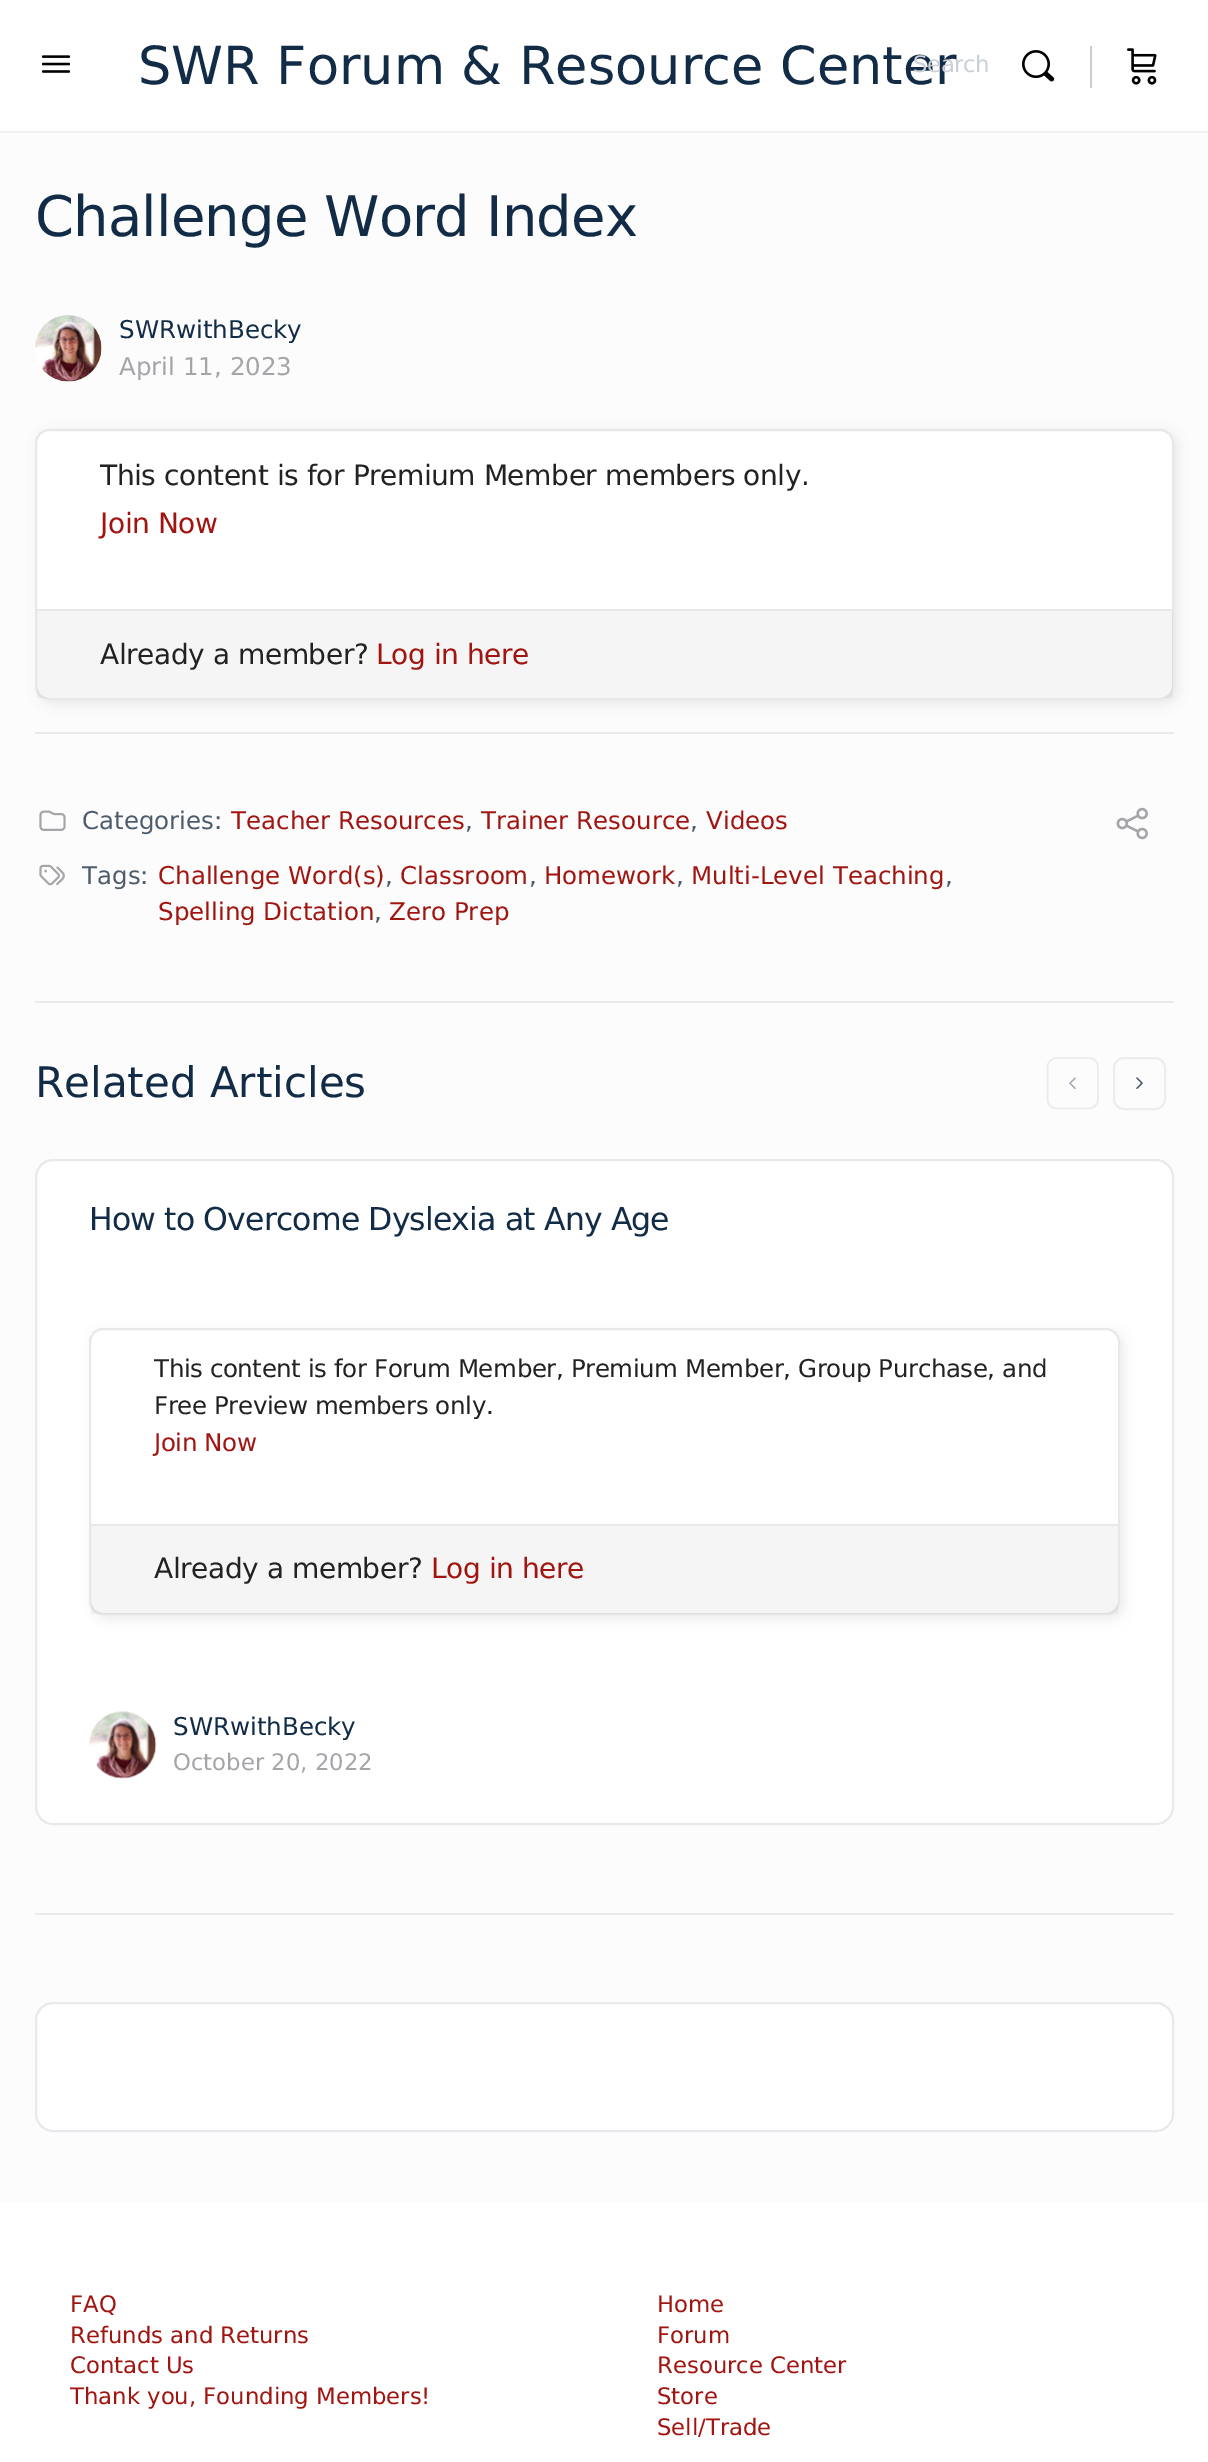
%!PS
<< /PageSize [1208 2462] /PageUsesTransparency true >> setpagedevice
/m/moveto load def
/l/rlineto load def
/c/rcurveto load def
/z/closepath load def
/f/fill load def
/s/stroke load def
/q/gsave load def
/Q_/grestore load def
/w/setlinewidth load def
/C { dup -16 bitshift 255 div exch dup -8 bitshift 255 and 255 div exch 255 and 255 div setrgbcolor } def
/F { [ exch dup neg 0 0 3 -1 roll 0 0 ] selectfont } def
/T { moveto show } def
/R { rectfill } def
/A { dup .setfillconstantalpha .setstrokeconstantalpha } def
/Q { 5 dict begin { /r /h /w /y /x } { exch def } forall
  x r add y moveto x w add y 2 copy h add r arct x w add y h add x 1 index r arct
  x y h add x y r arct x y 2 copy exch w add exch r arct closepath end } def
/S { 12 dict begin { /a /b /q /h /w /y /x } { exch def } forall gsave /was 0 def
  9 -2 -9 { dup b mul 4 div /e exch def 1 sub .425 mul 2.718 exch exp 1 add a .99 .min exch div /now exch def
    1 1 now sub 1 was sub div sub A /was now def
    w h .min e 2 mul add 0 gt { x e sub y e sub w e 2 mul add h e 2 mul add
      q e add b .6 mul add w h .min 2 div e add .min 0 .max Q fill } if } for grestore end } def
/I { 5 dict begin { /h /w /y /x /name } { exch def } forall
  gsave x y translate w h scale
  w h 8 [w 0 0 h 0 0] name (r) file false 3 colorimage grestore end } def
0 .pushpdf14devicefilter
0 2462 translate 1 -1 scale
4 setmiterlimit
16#FCFCFC C
0 0 1208 2462 R
16#41476C C
0 0 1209 131 0 1 .15 S
0.05 A
16#8B8D9D C
0 131 1208 2 R
1 A
16#FFFFFF C
0 0 1208 131 R
/DejaVuSans-Regular 52.5 F
16#122B46 C
(SWR Forum & Resource Center) 138 84 T
(1.rgb) 42 55 28 18 I
/DejaVuSans-Regular 22.75 F
16#CBD0D6 C
913 72 m -.42 0 (Search) ashow
(2.rgb) 1022 50 33 32 I
16#CCCCCC C
1090 46 2 42 R
(3.rgb) 1127 48 30 37 I
/DejaVuSans-Regular 56 F
16#122B46 C
35 236 m -.85 0 (Challenge Word Index) ashow
(4.rgb) 35 315 67 67 I
/DejaVuSans-Regular 24.5 F
(SWRwithBecky) 119 338 T
16#A3A5A9 C
(April 11, 2023) 119 375 T
16#000000 C
39 432 1139 272 14 6 .07 S
16#FFFFFF C
36 430 1137 269 13 Q q f Q_
16#E8E8E8 C
2 w
s
/DejaVuSans-Regular 28 F
16#222222 C
100 485 m -.42 0 (This content is for Premium Member members only.) ashow
16#A11511 C
100 533 m -.42 0 (Join Now) ashow
0.04 A
16#000000 C
37 611 1136 87 R
1 A
16#E8E8E8 C
37 609 1136 2 R
16#222222 C
100 664 m -.42 0 (Already a member?) ashow
16#A11511 C
376 664 m -.42 0 (Log in here) ashow
16#E7E9EC C
35 732 1139 2 R
(5.rgb) 39 810 27 21 I
/DejaVuSans-Regular 24.5 F
16#4D5C6D C
(Categories:) 82 829 T
16#A11511 C
(Teacher Resources) 231 829 T
16#4D5C6D C
(,) 465 829 T
16#A11511 C
(Trainer Resource) 481 829 T
16#4D5C6D C
(,) 690 829 T
16#A11511 C
(Videos) 706 829 T
(6.rgb) 39 864 26 22 I
16#4D5C6D C
(Tags:) 82 884 T
16#A11511 C
(Challenge Word\(s\)) 158 884 T
16#4D5C6D C
(,) 385 884 T
16#A11511 C
(Classroom) 400 884 T
16#4D5C6D C
(,) 529 884 T
16#A11511 C
(Homework) 544 884 T
16#4D5C6D C
(,) 676 884 T
16#A11511 C
(Multi-Level Teaching) 691 884 T
16#4D5C6D C
(,) 945 884 T
16#A11511 C
(Spelling Dictation) 158 920 T
16#4D5C6D C
(,) 374 920 T
16#A11511 C
(Zero Prep) 389 920 T
(7.rgb) 1116 807 32 33 I
16#E7E9EC C
35 1001 1139 2 R
35 1913 1139 2 R
/DejaVuSans-Regular 42 F
16#122B46 C
(Related Articles) 35 1097 T
16#EBEDEF C
1.8 w
1088.5 1108.5 m -31.5 0 l -5.5 0 -9.5 -4 -9.5 -9.5 c 0 -31.5 l 0 -5.5 4 -9.5 9.5 -9.5 c 31.5 0 l 5.5 0 9.5 4 9.5 9.5 c 0 31.5 l 0 5.5 -4 9.5 -9.5 9.5 c z s
(8.rgb) 1069 1077 7 12 I
2 w
1114 1058 51 51 10 Q s
(9.rgb) 1136 1077 7 12 I
16#FFFFFF C
36 1160 1137 664 17 Q q f Q_
16#E7E9EC C
s
/DejaVuSans-Regular 31.5 F
16#122B46 C
89 1230 m -.85 0 (How to Overcome Dyslexia at Any Age) ashow
16#000000 C
93 1332 1031 287 14 6 .07 S
16#FFFFFF C
90 1329 1029 285 13 Q q f Q_
16#E8E8E8 C
s
/DejaVuSans-Regular 24.5 F
16#222222 C
154 1377 m -.42 0 (This content is for Forum Member, Premium Member, Group Purchase, and) ashow
154 1414 m -.42 0 (Free Preview members only.) ashow
16#A11511 C
154 1451 m -.42 0 (Join Now) ashow
0.04 A
16#000000 C
91 1526 1027 88 R
1 A
16#E8E8E8 C
91 1524 1027 2 R
/DejaVuSans-Regular 28 F
16#222222 C
154 1578 m -.42 0 (Already a member?) ashow
16#A11511 C
431 1578 m -.42 0 (Log in here) ashow
(10.rgb) 89 1711 68 68 I
/DejaVuSans-Regular 24.5 F
16#122B46 C
(SWRwithBecky) 173 1735 T
/DejaVuSans-Regular 22.75 F
16#A3A5A9 C
(October 20, 2022) 173 1770 T
16#FFFFFF C
36 2003 1137 128 17 Q q f Q_
16#E7E9EC C
s
16#FFFFFF C
0 2202 1208 260 R
16#A11511 C
(FAQ) 70 2312 T
(Refunds and Returns) 70 2343 T
(Contact Us) 70 2373 T
(Thank you, Founding Members!) 70 2404 T
(Home) 657 2312 T
(Forum) 657 2343 T
(Resource Center) 657 2373 T
(Store) 657 2404 T
(Sell/Trade) 657 2435 T
.poppdf14devicefilter showpage
